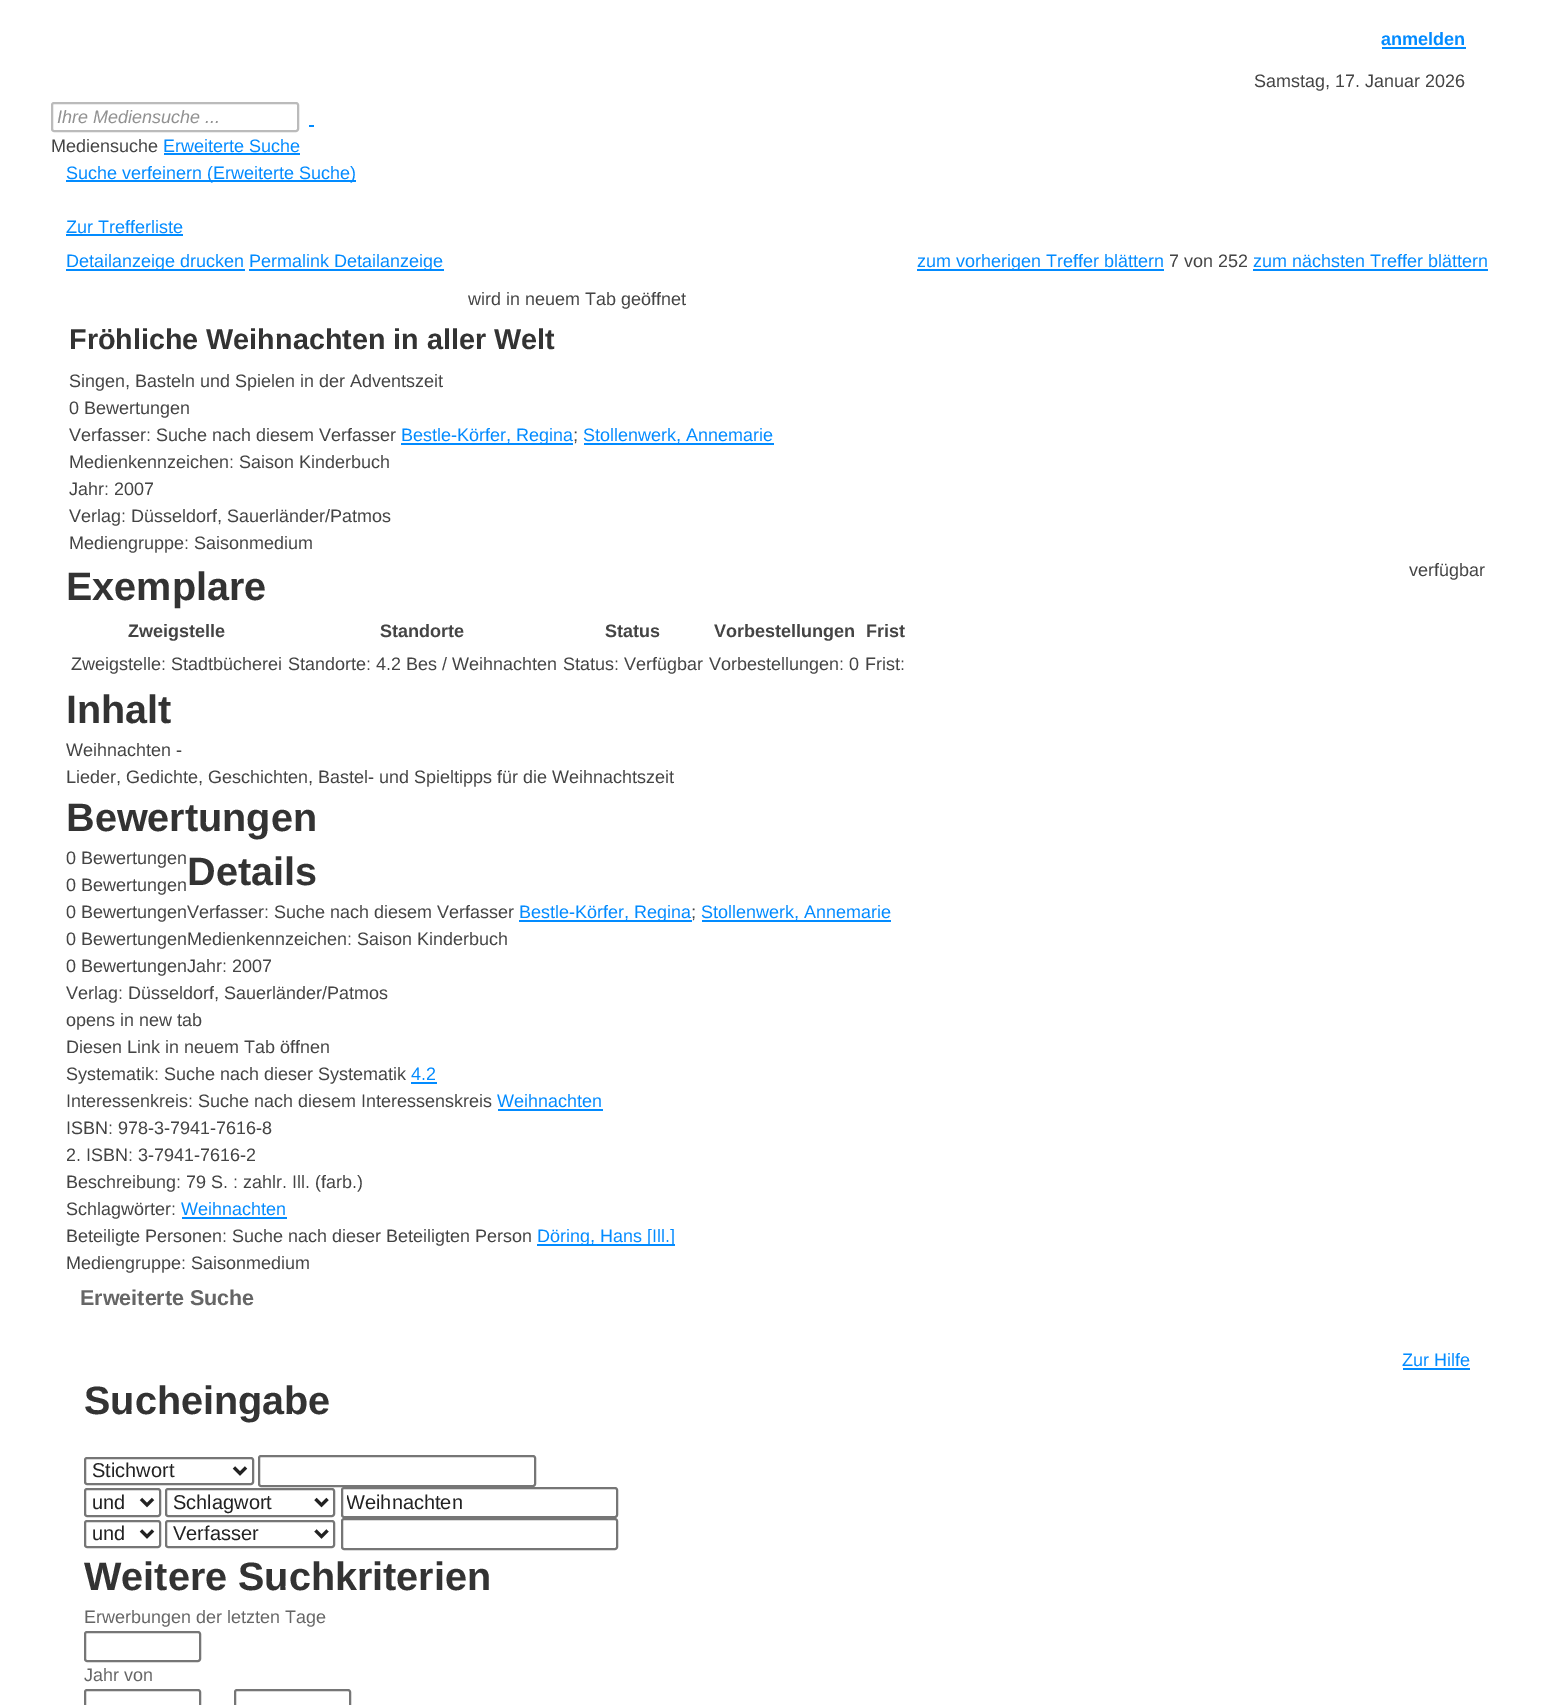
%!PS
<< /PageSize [1553 1705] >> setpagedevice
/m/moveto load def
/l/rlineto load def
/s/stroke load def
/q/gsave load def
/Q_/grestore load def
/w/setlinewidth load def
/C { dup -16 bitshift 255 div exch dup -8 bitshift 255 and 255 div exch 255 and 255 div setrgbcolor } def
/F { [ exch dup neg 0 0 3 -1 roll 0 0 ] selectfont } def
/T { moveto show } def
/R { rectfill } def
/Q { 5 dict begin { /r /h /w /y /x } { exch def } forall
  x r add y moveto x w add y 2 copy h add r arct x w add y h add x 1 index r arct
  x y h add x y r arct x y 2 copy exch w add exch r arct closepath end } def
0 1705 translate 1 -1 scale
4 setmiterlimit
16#FFFFFF C
0 0 1553 1705 R
/LiberationSans-Bold 18 F
16#028BFF C
(anmelden) 1381 45 T
1382 47 84 2 R
/LiberationSans-Regular 18 F
16#444444 C
(Samstag, 17. Januar 2026) 1254 87 T
16#BBBBBB C
2 w
52 103 246 28 2 Q s
/LiberationSans-Italic 18 F
16#919191 C
(Ihre Mediensuche ...) 57 123 T
16#028BFF C
309 125 5 2 R
/LiberationSans-Regular 18 F
16#444444 C
(Mediensuche) 51 152 T
16#028BFF C
(Erweiterte Suche) 163 152 T
164 153 136 2 R
66 180 290 2 R
(Suche verfeinern \(Erweiterte Suche\)) 66 179 T
(Zur Trefferliste) 66 233 T
66 234 117 2 R
66 269 179 2 R
(Detailanzeige drucken) 66 267 T
249 269 195 2 R
(Permalink Detailanzeige) 249 267 T
917 269 247 2 R
(zum vorherigen Treffer blättern) 917 267 T
16#444444 C
(7 von 252) 1169 267 T
16#028BFF C
(zum nächsten Treffer blättern) 1253 267 T
1253 269 235 2 R
16#444444 C
(wird in neuem Tab geöffnet) 468 305 T
/LiberationSans-Bold 28.75 F
16#333333 C
(Fröhliche Weihnachten in aller Welt) 69 349 T
/LiberationSans-Regular 18 F
16#444444 C
(Singen, Basteln und Spielen in der Adventszeit) 69 387 T
(0 Bewertungen) 69 414 T
(Verfasser: Suche nach diesem Verfasser) 69 441 T
16#028BFF C
401 443 172 2 R
(Bestle-Körfer, Regina) 401 441 T
16#444444 C
(;) 573 441 T
16#028BFF C
584 443 190 2 R
(Stollenwerk, Annemarie) 583 441 T
16#444444 C
(Medienkennzeichen: Saison Kinderbuch) 69 468 T
(Jahr: 2007) 69 495 T
(Verlag: Düsseldorf, Sauerländer/Patmos) 69 522 T
(Mediengruppe: Saisonmedium) 69 549 T
(verfügbar) 1409 576 T
/LiberationSans-Bold 39.6 F
16#333333 C
(Exemplare) 66 600 T
/LiberationSans-Bold 18 F
16#444444 C
(Zweigstelle) 128 637 T
(Standorte) 380 637 T
(Status) 605 637 T
(Vorbestellungen) 714 637 T
(Frist) 866 637 T
/LiberationSans-Regular 18 F
(Zweigstelle: Stadtbücherei) 71 670 T
(Standorte: 4.2 Bes / Weihnachten) 288 670 T
(Status: Verfügbar) 563 670 T
(Vorbestellungen: 0) 709 670 T
(Frist:) 865 670 T
/LiberationSans-Bold 39.6 F
16#333333 C
(Inhalt) 66 723 T
/LiberationSans-Regular 18 F
16#444444 C
(Weihnachten -) 66 756 T
(Lieder, Gedichte, Geschichten, Bastel- und Spieltipps für die Weihnachtszeit) 66 783 T
/LiberationSans-Bold 39.6 F
16#333333 C
(Bewertungen) 66 831 T
/LiberationSans-Regular 18 F
16#444444 C
(0 Bewertungen) 66 864 T
(0 Bewertungen) 66 891 T
(0 BewertungenVerfasser: Suche nach diesem Verfasser) 66 918 T
(0 BewertungenMedienkennzeichen: Saison Kinderbuch) 66 945 T
(0 BewertungenJahr: 2007) 66 972 T
/LiberationSans-Bold 39.6 F
16#333333 C
(Details) 187 885 T
16#028BFF C
519 920 173 2 R
/LiberationSans-Regular 18 F
(Bestle-Körfer, Regina) 519 918 T
16#444444 C
(;) 691 918 T
16#028BFF C
702 920 189 2 R
(Stollenwerk, Annemarie) 701 918 T
16#444444 C
(Verlag: Düsseldorf, Sauerländer/Patmos) 66 999 T
(opens in new tab) 66 1026 T
(Diesen Link in neuem Tab öffnen) 66 1053 T
(Systematik: Suche nach dieser Systematik) 66 1080 T
16#028BFF C
(4.2) 411 1080 T
411 1082 26 2 R
16#444444 C
(Interessenkreis: Suche nach diesem Interessenskreis) 66 1107 T
16#028BFF C
(Weihnachten) 497 1107 T
498 1109 105 2 R
16#444444 C
(ISBN: 978-3-7941-7616-8) 66 1134 T
(2. ISBN: 3-7941-7616-2) 66 1161 T
(Beschreibung: 79 S. : zahlr. Ill. \(farb.\)) 66 1188 T
(Schlagwörter:) 66 1215 T
16#028BFF C
(Weihnachten) 181 1215 T
182 1217 105 2 R
16#444444 C
(Beteiligte Personen: Suche nach dieser Beteiligten Person) 66 1242 T
16#028BFF C
537 1244 138 2 R
(Döring, Hans [Ill.]) 537 1242 T
16#444444 C
(Mediengruppe: Saisonmedium) 66 1269 T
/LiberationSans-Bold 21.5 F
16#666666 C
(Erweiterte Suche) 80 1305 T
/LiberationSans-Regular 18 F
16#028BFF C
(Zur Hilfe) 1402 1366 T
1403 1368 67 2 R
/LiberationSans-Bold 39.6 F
16#333333 C
(Sucheingabe) 84 1414 T
16#767676 C
85 1458 168 26 2 Q s
16#222222 C
3 w
234 1467.5 m 6 6 l 6 -6 l s
/LiberationSans-Regular 20 F
(Stichwort) 92 1477 T
16#767676 C
2 w
259 1456 276 30 2 Q s
85 1489 75 27 2 Q s
16#222222 C
3 w
141 1499 m 6 6 l 6 -6 l s
(und) 92 1509 T
16#767676 C
2 w
166 1489 168 27 2 Q s
16#222222 C
3 w
315.5 1499 m 6 6 l 6 -6 l s
(Schlagwort) 173 1509 T
16#767676 C
2 w
342 1488 275 29 2 Q s
q
347 1491 265 23 rectclip
16#222222 C
(Weihnachten) 346 1509 T
Q_
85 1521 75 26 2 Q s
16#222222 C
3 w
141 1530.5 m 6 6 l 6 -6 l s
(und) 92 1540 T
16#767676 C
2 w
166 1521 168 26 2 Q s
16#222222 C
3 w
315.5 1530.5 m 6 6 l 6 -6 l s
(Verfasser) 173 1540 T
16#767676 C
2 w
342 1519 275 30 2 Q s
/LiberationSans-Bold 39.6 F
16#333333 C
(Weitere Suchkriterien) 84 1590 T
/LiberationSans-Regular 18 F
16#666666 C
(Erwerbungen der letzten Tage) 84 1623 T
16#767676 C
85 1632 115 29 2 Q s
16#666666 C
(Jahr von) 84 1681 T
16#767676 C
85 1690 115 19 2 Q s
235 1690 115 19 2 Q s
showpage
